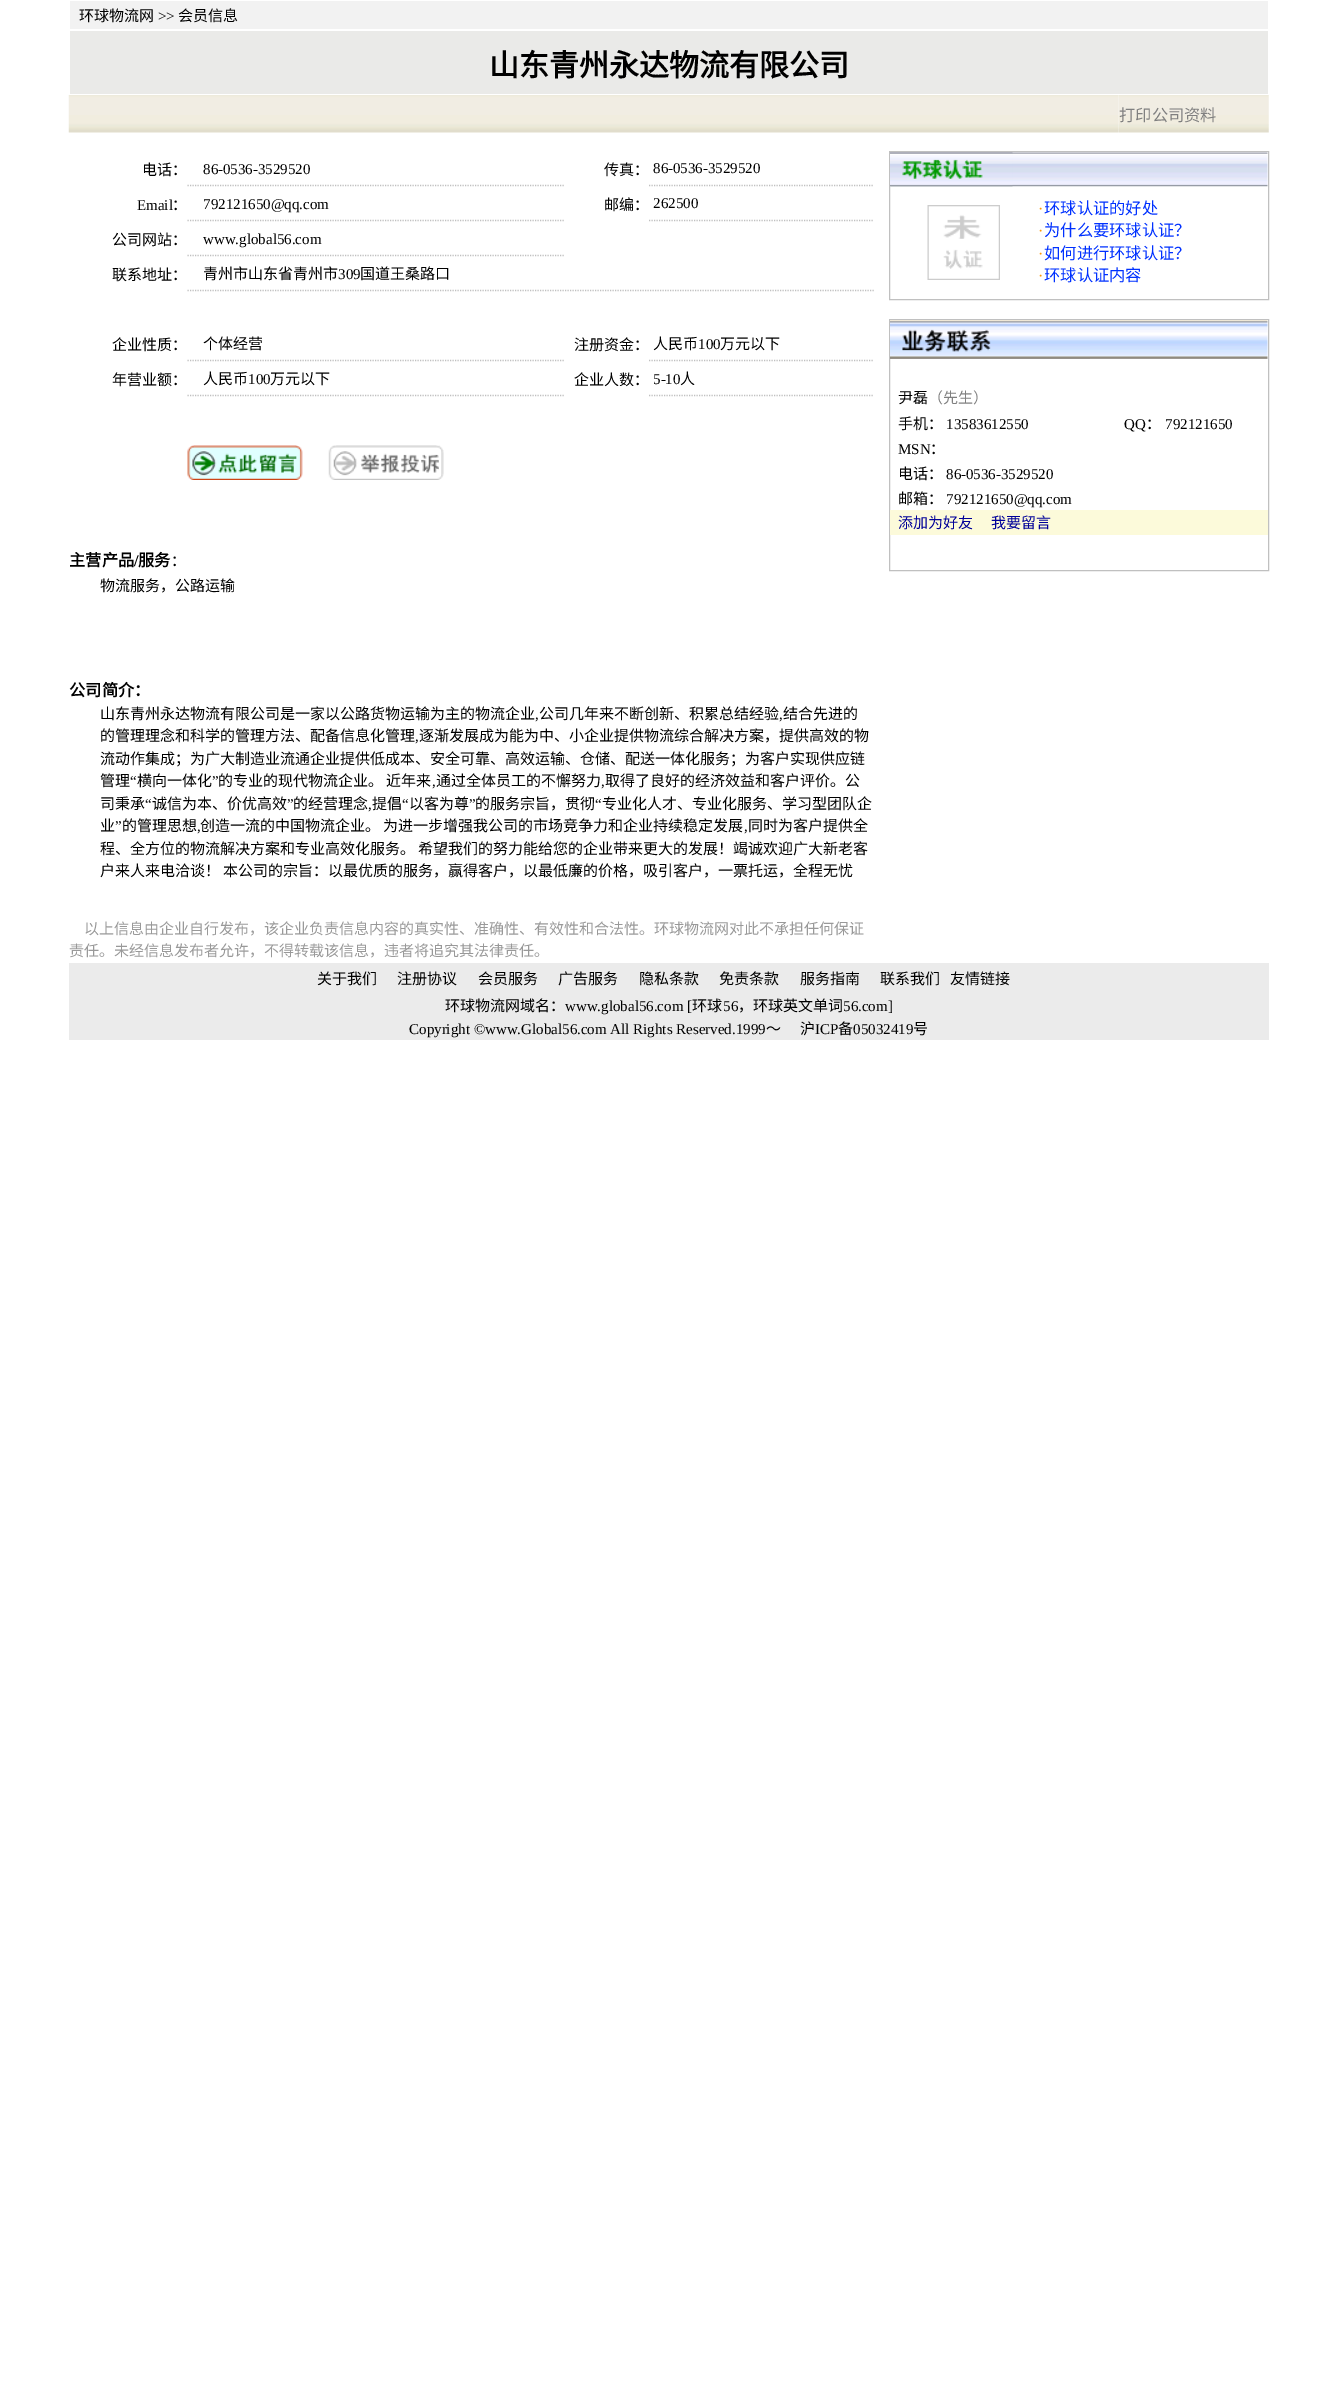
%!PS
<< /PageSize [1337 2384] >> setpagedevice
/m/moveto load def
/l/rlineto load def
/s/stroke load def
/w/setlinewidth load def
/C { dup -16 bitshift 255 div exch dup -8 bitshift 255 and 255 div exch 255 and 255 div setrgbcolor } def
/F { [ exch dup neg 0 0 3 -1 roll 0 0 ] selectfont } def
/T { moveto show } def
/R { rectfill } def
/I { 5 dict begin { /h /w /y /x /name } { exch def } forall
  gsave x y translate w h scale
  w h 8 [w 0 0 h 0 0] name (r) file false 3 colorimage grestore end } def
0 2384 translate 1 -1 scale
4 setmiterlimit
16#FFFFFF C
0 0 1337 2384 R
16#F2F2F2 C
70 1 1198 28 R
/NotoSansCJKSC-Regular 15 F
16#000000 C
(环球物流网) 79 21 T
/LiberationSerif-Regular 15 F
(>>) 158 21 T
/NotoSansCJKSC-Regular 15 F
(会员信息) 178 21 T
16#EAEAE8 C
70 31 1198 63 R
/NotoSansCJKSC-Bold 30 F
16#000000 C
(山东青州永达物流有限公司) 489 76 T
(1.rgb) 68 95 1051 38 I
(2.rgb) 1119 95 150 38 I
/NotoSansCJKSC-Regular 16.25 F
16#808080 C
(打印公司资料) 1119 121 T
/NotoSansCJKSC-Regular 15 F
16#000000 C
(电话：) 142 175 T
16#C0C0C0 C
1.2 w
[1.25 1.25] 0 setdash
187.5 185.5 m 377.5 0 l s
/LiberationSerif-Regular 15 F
16#000000 C
(86-0536-3529520) 203 174 T
/NotoSansCJKSC-Regular 15 F
(传真：) 604 175 T
16#C0C0C0 C
649 185.5 m 225 0 l s
/LiberationSerif-Regular 15 F
16#000000 C
(86-0536-3529520) 653 173 T
(Email) 137 210 T
/NotoSansCJKSC-Regular 15 F
(：) 172 210 T
16#C0C0C0 C
187.5 220.5 m 377.5 0 l s
/LiberationSerif-Regular 15 F
16#000000 C
(792121650@qq.com) 203 209 T
/NotoSansCJKSC-Regular 15 F
(邮编：) 604 210 T
16#C0C0C0 C
649 220.5 m 225 0 l s
/LiberationSerif-Regular 15 F
16#000000 C
(262500) 653 208 T
/NotoSansCJKSC-Regular 15 F
(公司网站：) 112 245 T
16#C0C0C0 C
187.5 255.5 m 377.5 0 l s
/LiberationSerif-Regular 15 F
16#000000 C
(www.global56.com) 203 244 T
/NotoSansCJKSC-Regular 15 F
(联系地址：) 112 280 T
16#C0C0C0 C
187.5 290.5 m 686.5 0 l s
16#000000 C
(青州市山东省青州市) 203 279 T
/LiberationSerif-Regular 15 F
(309) 338 279 T
/NotoSansCJKSC-Regular 15 F
(国道王桑路口) 360 279 T
(企业性质：) 112 350 T
16#C0C0C0 C
187.5 360.5 m 377.5 0 l s
16#000000 C
(个体经营) 203 349 T
(注册资金：) 574 350 T
16#C0C0C0 C
649 360.5 m 225 0 l s
16#000000 C
(人民币) 653 349 T
/LiberationSerif-Regular 15 F
(100) 698 349 T
/NotoSansCJKSC-Regular 15 F
(万元以下) 720 349 T
(年营业额：) 112 385 T
16#C0C0C0 C
187.5 395.5 m 377.5 0 l s
16#000000 C
(人民币) 203 384 T
/LiberationSerif-Regular 15 F
(100) 248 384 T
/NotoSansCJKSC-Regular 15 F
(万元以下) 270 384 T
(企业人数：) 574 385 T
16#C0C0C0 C
649 395.5 m 225 0 l s
/LiberationSerif-Regular 15 F
16#000000 C
(5-10) 653 384 T
/NotoSansCJKSC-Regular 15 F
(人) 680 384 T
(3.rgb) 187 445 116 35 I
(4.rgb) 328 445 116 35 I
/NotoSansCJKSC-Bold 16.25 F
(主营产品) 69 566 T
/LiberationSerif-Bold 16.25 F
(/) 134 566 T
/NotoSansCJKSC-Bold 16.25 F
(服务) 138 566 T
/NotoSansCJKSC-Regular 15 F
(：) 171 566 T
(物流服务，公路运输) 100 591 T
/NotoSansCJKSC-Bold 16.25 F
(公司简介：) 69 696 T
/NotoSansCJKSC-Regular 15 F
(山东青州永达物流有限公司是一家以公路货物运输为主的物流企业) 100 719 T
/LiberationSerif-Regular 15 F
(,) 535 719 T
/NotoSansCJKSC-Regular 15 F
(公司几年来不断创新、积累总结经验) 539 719 T
/LiberationSerif-Regular 15 F
(,) 779 719 T
/NotoSansCJKSC-Regular 15 F
(结合先进的) 783 719 T
(的管理理念和科学的管理方法、配备信息化管理) 100 741 T
/LiberationSerif-Regular 15 F
(,) 415 741 T
/NotoSansCJKSC-Regular 15 F
(逐渐发展成为能为中、小企业提供物流综合解决方案，提供高效的物) 419 741 T
(流动作集成；为广大制造业流通企业提供低成本、安全可靠、高效运输、仓储、配送一体化服务；为客户实现供应链) 100 764 T
(管理) 100 786 T
/LiberationSerif-Regular 15 F
(“) 130 786 T
/NotoSansCJKSC-Regular 15 F
(横向一体化) 137 786 T
/LiberationSerif-Regular 15 F
(”) 212 786 T
/NotoSansCJKSC-Regular 15 F
(的专业的现代物流企业。 近年来) 218 786 T
(通过全体员工的不懈努力) 436 786 T
(取得了良好的经济效益和客户评价。公) 605 786 T
/LiberationSerif-Regular 15 F
(,) 432 786 T
(,) 601 786 T
/NotoSansCJKSC-Regular 15 F
(司秉承) 100 809 T
/LiberationSerif-Regular 15 F
(“) 145 809 T
/NotoSansCJKSC-Regular 15 F
(诚信为本、价优高效) 152 809 T
/LiberationSerif-Regular 15 F
(”) 287 809 T
/NotoSansCJKSC-Regular 15 F
(的经营理念) 293 809 T
(提倡) 372 809 T
/LiberationSerif-Regular 15 F
(“) 402 809 T
/NotoSansCJKSC-Regular 15 F
(以客为尊) 409 809 T
/LiberationSerif-Regular 15 F
(”) 469 809 T
/NotoSansCJKSC-Regular 15 F
(的服务宗旨，贯彻) 475 809 T
/LiberationSerif-Regular 15 F
(“) 595 809 T
/NotoSansCJKSC-Regular 15 F
(专业化人才、专业化服务、学习型团队企) 602 809 T
/LiberationSerif-Regular 15 F
(,) 368 809 T
/NotoSansCJKSC-Regular 15 F
(业) 100 831 T
/LiberationSerif-Regular 15 F
(”) 115 831 T
/NotoSansCJKSC-Regular 15 F
(的管理思想) 122 831 T
(创造一流的中国物流企业。 为进一步增强我公司的市场竞争力和企业持续稳定发展) 200 831 T
(同时为客户提供全) 748 831 T
/LiberationSerif-Regular 15 F
(,) 197 831 T
(,) 744 831 T
/NotoSansCJKSC-Regular 15 F
(程、全方位的物流解决方案和专业高效化服务。 希望我们的努力能给您的企业带来更大的发展！竭诚欢迎广大新老客) 100 854 T
(户来人来电洽谈！ 本公司的宗旨：以最优质的服务，赢得客户，以最低廉的价格，吸引客户，一票托运，全程无忧) 100 876 T
16#999999 C
(以上信息由企业自行发布，该企业负责信息内容的真实性、准确性、有效性和合法性。环球物流网对此不承担任何保证) 84 934 T
(责任。未经信息发布者允许，不得转载该信息，违者将追究其法律责任。) 69 956 T
16#C0C0C0 C
1 w
[] 0 setdash
889.5 151.5 379 148 rectstroke
(5.rgb) 890 152 378 35 I
(6.rgb) 890 152 123 35 I
(7.rgb) 927 205 73 75 I
/LiberationSerif-Regular 16.25 F
16#FF9900 C
(·) 1038 214 T
/NotoSansCJKSC-Regular 16.25 F
16#0031FF C
(环球认证的好处) 1044 214 T
/LiberationSerif-Regular 16.25 F
16#FF9900 C
(·) 1038 236 T
/NotoSansCJKSC-Regular 16.25 F
16#0031FF C
(为什么要环球认证？) 1044 236 T
/LiberationSerif-Regular 16.25 F
16#FF9900 C
(·) 1038 259 T
/NotoSansCJKSC-Regular 16.25 F
16#0031FF C
(如何进行环球认证？) 1044 259 T
/LiberationSerif-Regular 16.25 F
16#FF9900 C
(·) 1038 281 T
/NotoSansCJKSC-Regular 16.25 F
16#0031FF C
(环球认证内容) 1044 281 T
16#C0C0C0 C
889.5 319.5 379 251 rectstroke
(8.rgb) 890 320 378 39 I
(9.rgb) 890 329 200 30 I
/NotoSansCJKSC-Regular 15 F
16#000000 C
(尹磊) 898 403 T
16#808080 C
(（先生）) 928 403 T
16#000000 C
(手机：) 898 429 T
/LiberationSerif-Regular 15 F
(13583612550) 946 429 T
(QQ) 1124 429 T
/NotoSansCJKSC-Regular 15 F
(：) 1146 429 T
/LiberationSerif-Regular 15 F
(792121650) 1165 429 T
(MSN) 898 454 T
/NotoSansCJKSC-Regular 15 F
(：) 930 454 T
(电话：) 898 479 T
/LiberationSerif-Regular 15 F
(86-0536-3529520) 946 479 T
/NotoSansCJKSC-Regular 15 F
(邮箱：) 898 504 T
/LiberationSerif-Regular 15 F
(792121650@qq.com) 946 504 T
16#FCFADA C
890 510 378 25 R
/NotoSansCJKSC-Regular 15 F
16#000099 C
(添加为好友) 898 528 T
(我要留言) 991 528 T
16#EBEBEB C
69 963 1200 77 R
16#000000 C
(关于我们) 317 984 T
(注册协议) 397 984 T
(会员服务) 478 984 T
(广告服务) 558 984 T
(隐私条款) 639 984 T
(免责条款) 719 984 T
(服务指南) 800 984 T
(联系我们) 880 984 T
(友情链接) 950 984 T
(环球物流网域名：) 445 1011 T
/LiberationSerif-Regular 15 F
(www.global56.com [) 565 1011 T
/NotoSansCJKSC-Regular 15 F
(环球) 692 1011 T
/LiberationSerif-Regular 15 F
(56) 723 1011 T
/NotoSansCJKSC-Regular 15 F
(，环球英文单词) 738 1011 T
/LiberationSerif-Regular 15 F
(56.com]) 843 1011 T
(Copyright ©www.Global56.com All Rights Reserved.1999) 409 1034 T
/NotoSansCJKSC-Regular 15 F
(～) 766 1034 T
(沪) 800 1034 T
/LiberationSerif-Regular 15 F
(ICP) 815 1034 T
/NotoSansCJKSC-Regular 15 F
(备) 838 1034 T
/LiberationSerif-Regular 15 F
(05032419) 853 1034 T
/NotoSansCJKSC-Regular 15 F
(号) 913 1034 T
showpage
